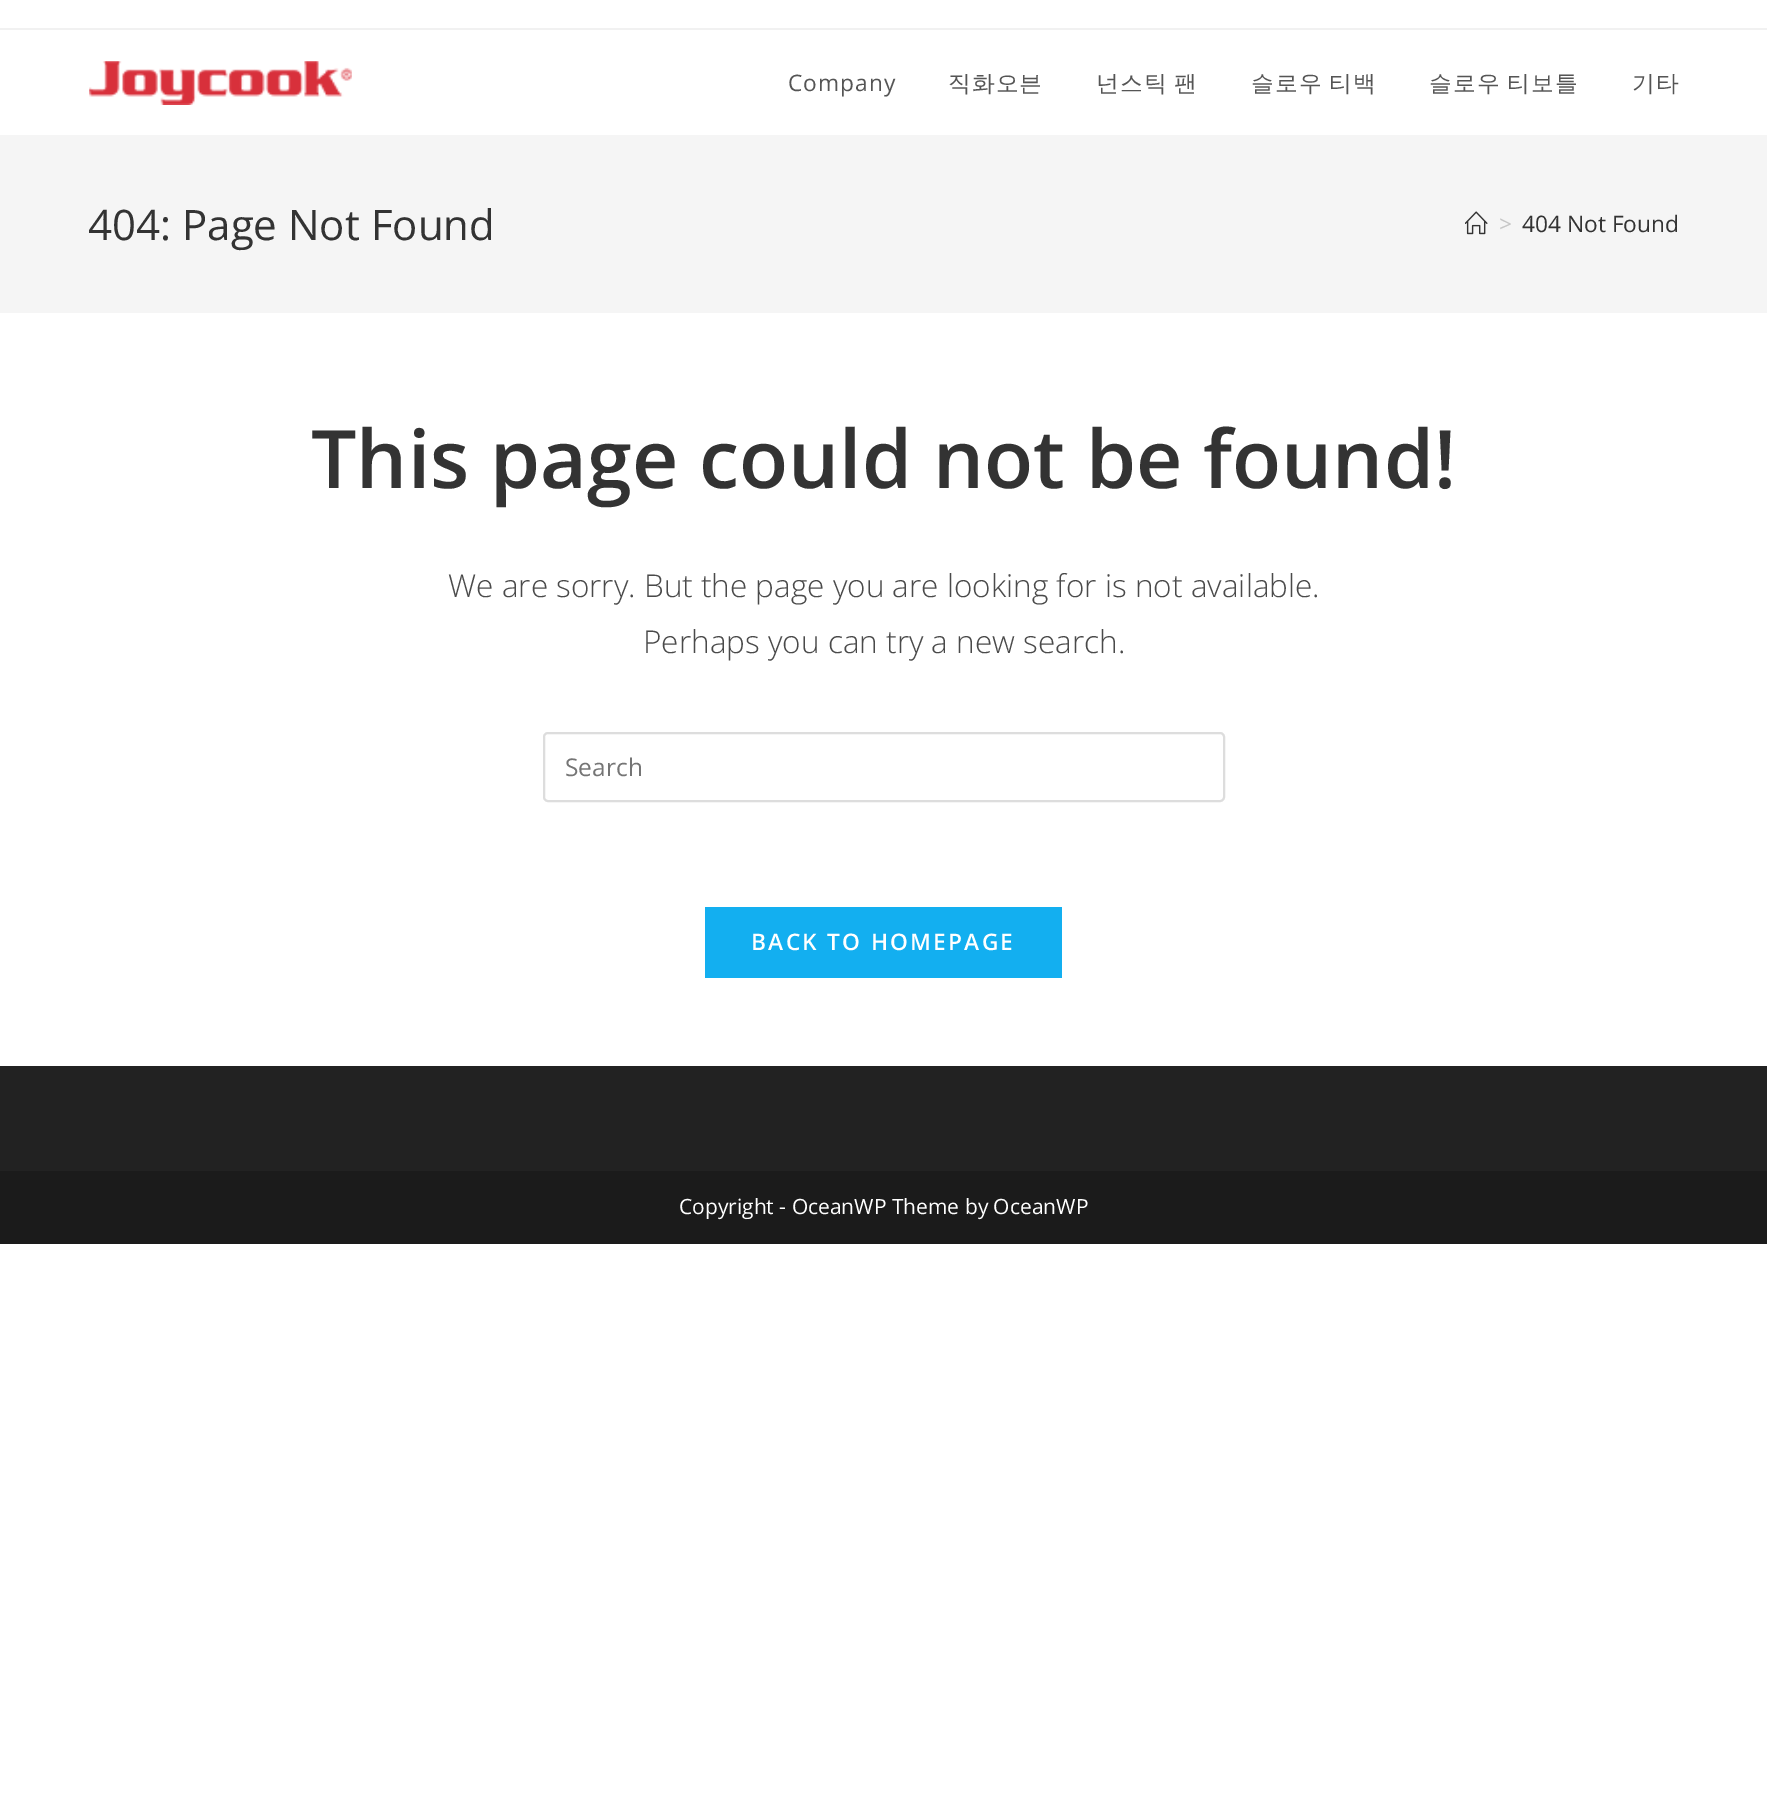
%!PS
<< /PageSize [1767 1811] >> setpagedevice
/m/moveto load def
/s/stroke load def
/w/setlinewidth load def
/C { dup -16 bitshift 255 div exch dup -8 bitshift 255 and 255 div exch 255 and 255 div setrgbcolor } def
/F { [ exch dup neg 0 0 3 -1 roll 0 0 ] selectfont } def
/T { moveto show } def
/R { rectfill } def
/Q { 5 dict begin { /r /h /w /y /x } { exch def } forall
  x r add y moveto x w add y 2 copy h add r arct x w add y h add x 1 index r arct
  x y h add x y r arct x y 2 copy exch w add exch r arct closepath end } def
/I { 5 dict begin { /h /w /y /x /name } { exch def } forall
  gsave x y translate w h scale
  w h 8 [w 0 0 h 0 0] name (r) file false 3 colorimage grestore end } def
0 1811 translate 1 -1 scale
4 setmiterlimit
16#FFFFFF C
0 0 1767 1811 R
16#F1F1F1 C
0 28 1767 2 R
(1.rgb) 89 61 263 44 I
/OpenSans-Regular 22.75 F
16#555555 C
788 91 m 1 0 (Company) ashow
/WenQuanYiZenHei-Medium 22.75 F
948 91 m 1 0 (직화오븐) ashow
1096 91 m -1 0 32 1 0 (넌스틱 팬) awidthshow
1251 91 m -1 0 32 1 0 (슬로우 티백) awidthshow
1429 91 m -1 0 32 1 0 (슬로우 티보틀) awidthshow
1632 91 m 1 0 (기타) ashow
16#F5F5F5 C
0 135 1767 178 R
/OpenSans-Regular 42 F
16#333333 C
(404: Page Not Found) 88 240 T
(2.rgb) 1465 211 23 24 I
/OpenSans-Regular 22.75 F
16#C6C6C6 C
(>) 1499 232 T
16#333333 C
(404 Not Found) 1522 232 T
/OpenSans-SemiBold 80.5 F
(This page could not be found!) 311 488 T
/OpenSans-Light 31.5 F
16#4A4A4A C
(We are sorry. But the page you are looking for is not available.) 448 597 T
(Perhaps you can try a new search.) 643 653 T
16#DDDDDD C
2 w
544 733 680 68 4 Q s
/OpenSans-Regular 24.5 F
16#757575 C
(Search) 565 776 T
16#13AFF0 C
705 907 357 71 R
/OpenSans-SemiBold 22.75 F
16#FFFFFF C
751 950 m 2.25 0 (BACK TO HOMEPAGE) ashow
16#222222 C
0 1066 1767 105 R
16#1B1B1B C
0 1171 1767 73 R
/OpenSans-Regular 21 F
16#FFFFFF C
(Copyright - OceanWP Theme by OceanWP) 679 1214 T
showpage
